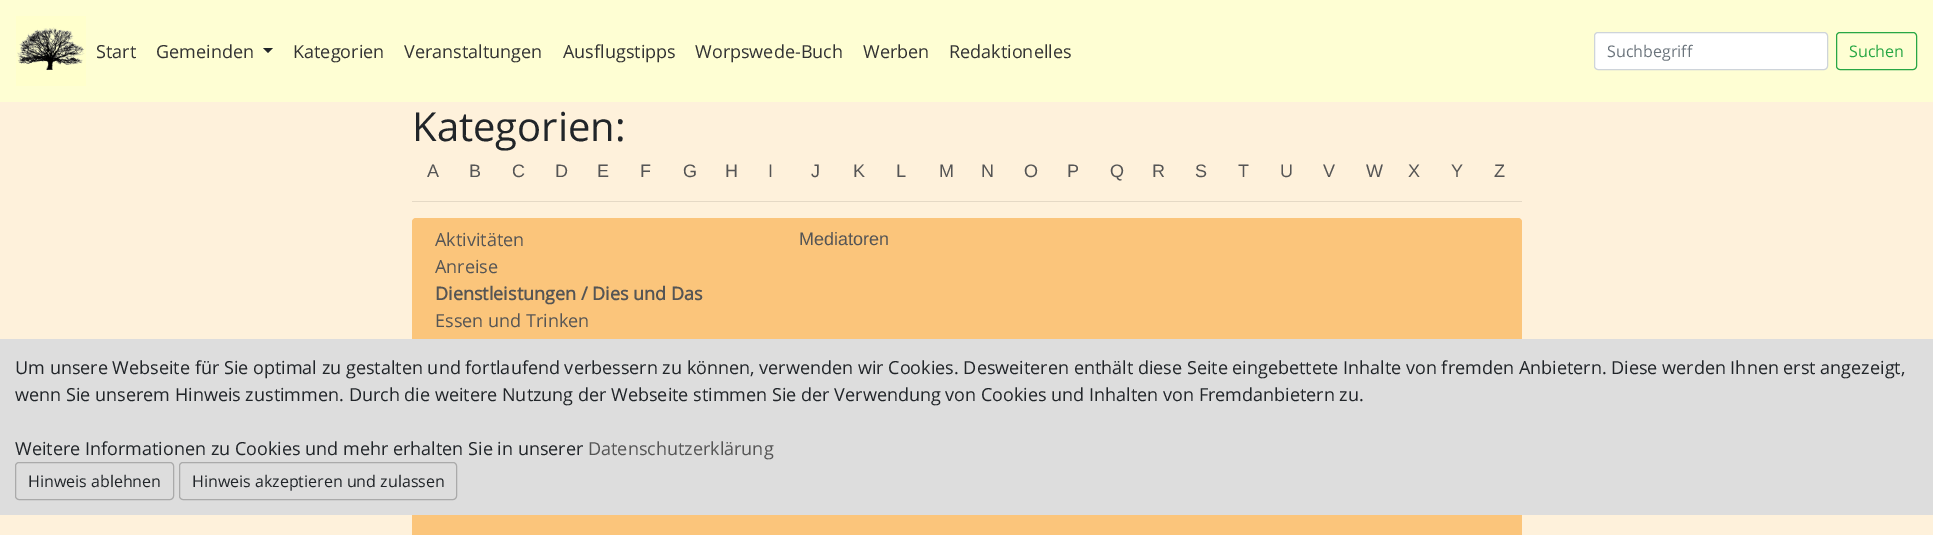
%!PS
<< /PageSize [1933 535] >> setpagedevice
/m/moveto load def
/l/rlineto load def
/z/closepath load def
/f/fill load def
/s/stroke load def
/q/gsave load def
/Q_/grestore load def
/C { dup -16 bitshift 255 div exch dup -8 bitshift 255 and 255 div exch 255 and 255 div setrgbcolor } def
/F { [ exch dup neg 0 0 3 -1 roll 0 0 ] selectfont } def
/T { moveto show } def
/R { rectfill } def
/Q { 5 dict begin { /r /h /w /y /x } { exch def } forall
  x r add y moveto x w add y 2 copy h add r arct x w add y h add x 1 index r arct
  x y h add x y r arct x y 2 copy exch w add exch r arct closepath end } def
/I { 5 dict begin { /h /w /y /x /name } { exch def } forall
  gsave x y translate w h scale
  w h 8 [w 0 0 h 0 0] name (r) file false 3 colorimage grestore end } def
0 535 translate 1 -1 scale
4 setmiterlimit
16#FEF1DB C
0 0 1933 535 R
16#FEFED3 C
0 0 1933 102 R
(1.rgb) 16 16 70 70 I
/OpenSans-Regular 18 F
16#333333 C
(Start) 96 58 T
(Gemeinden) 156 58 T
16#212529 C
263 48 m 10 0 l -5 5 l z f
16#333333 C
(Kategorien) 293 58 T
(Veranstaltungen) 404 58 T
(Ausflugstipps) 563 58 T
(Worpswede-Buch) 695 58 T
(Werben) 863 58 T
(Redaktionelles) 949 58 T
16#FFFFFF C
1594.5 32.5 233 37 3.5 Q q f Q_
16#CED4DA C
s
/OpenSans-Regular 16 F
16#6C757D C
(Suchbegriff) 1607 57 T
16#28A745 C
1836.5 32.5 80 37 3.5 Q s
(Suchen) 1849 57 T
/OpenSans-Regular 40 F
16#212529 C
(Kategorien:) 412 141 T
/LiberationSans-Regular 18 F
16#555555 C
(A) 427 177 T
(B) 469 177 T
(C) 512 177 T
(D) 555 177 T
(E) 597 177 T
(F) 640 177 T
(G) 683 177 T
(H) 725 177 T
(I) 768 177 T
(J) 811 177 T
(K) 853 177 T
(L) 896 177 T
(M) 939 177 T
(N) 981 177 T
(O) 1024 177 T
(P) 1067 177 T
(Q) 1110 177 T
(R) 1152 177 T
(S) 1195 177 T
(T) 1238 177 T
(U) 1280 177 T
(V) 1323 177 T
(W) 1366 177 T
(X) 1408 177 T
(Y) 1451 177 T
(Z) 1494 177 T
16#E5D9C5 C
412 201 1110 1 R
16#FBC57B C
412 218 1110 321 4 Q f
/OpenSans-Regular 18 F
16#555555 C
(Aktivitäten) 435 246 T
(Anreise) 435 273 T
/OpenSans-Bold 18 F
(Dienstleistungen / Dies und Das) 435 300 T
/OpenSans-Regular 18 F
(Essen und Trinken) 435 327 T
/LiberationSans-Regular 18 F
(Mediatoren) 799 245 T
16#DDDDDD C
0 339 1933 176 R
/OpenSans-Regular 18 F
16#212529 C
(Um unsere Webseite für Sie optimal zu gestalten und fortlaufend verbessern zu können, verwenden wir Cookies. Desweiteren enthält diese Seite eingebettete Inhalte von fremden Anbietern. Diese werden Ihnen erst angezeigt,) 15 374 T
(wenn Sie unserem Hinweis zustimmen. Durch die weitere Nutzung der Webseite stimmen Sie der Verwendung von Cookies und Inhalten von Fremdanbietern zu.) 15 401 T
(Weitere Informationen zu Cookies und mehr erhalten Sie in unserer) 15 455 T
16#555555 C
(Datenschutzerklärung) 588 455 T
16#AAAAAA C
15.5 462.5 158 37 3.5 Q s
/OpenSans-Regular 16 F
16#212529 C
(Hinweis ablehnen) 28 487 T
16#AAAAAA C
179.5 462.5 277 37 3.5 Q s
16#212529 C
(Hinweis akzeptieren und zulassen) 192 487 T
showpage
